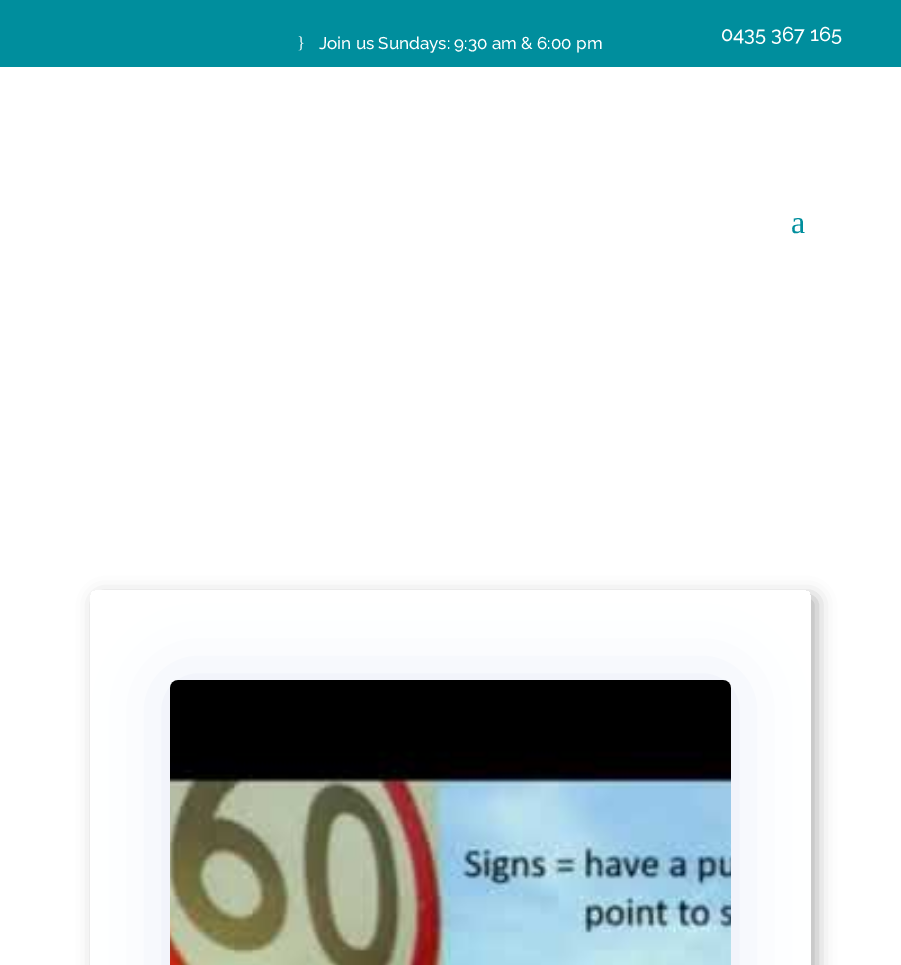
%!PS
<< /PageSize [901 965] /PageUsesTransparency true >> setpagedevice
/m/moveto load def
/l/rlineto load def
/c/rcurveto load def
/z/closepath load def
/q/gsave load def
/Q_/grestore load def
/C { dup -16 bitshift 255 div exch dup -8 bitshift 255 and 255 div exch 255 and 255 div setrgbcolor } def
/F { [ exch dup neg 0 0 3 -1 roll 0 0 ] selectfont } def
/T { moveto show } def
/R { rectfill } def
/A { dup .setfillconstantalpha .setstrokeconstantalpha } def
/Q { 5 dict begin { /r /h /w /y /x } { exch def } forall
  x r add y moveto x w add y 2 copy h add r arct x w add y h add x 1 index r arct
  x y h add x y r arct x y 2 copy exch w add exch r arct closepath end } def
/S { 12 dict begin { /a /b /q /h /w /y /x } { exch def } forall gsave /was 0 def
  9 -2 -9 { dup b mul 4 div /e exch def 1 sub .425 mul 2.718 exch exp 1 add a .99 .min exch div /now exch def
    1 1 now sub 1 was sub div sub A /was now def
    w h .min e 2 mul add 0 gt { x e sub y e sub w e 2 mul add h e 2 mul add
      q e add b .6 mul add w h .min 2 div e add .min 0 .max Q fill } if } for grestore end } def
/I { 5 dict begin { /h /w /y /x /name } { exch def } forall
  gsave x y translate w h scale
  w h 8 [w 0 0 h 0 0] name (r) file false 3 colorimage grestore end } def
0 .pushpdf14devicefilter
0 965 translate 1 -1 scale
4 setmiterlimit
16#FFFFFF C
0 0 901 965 R
16#008E9D C
0 0 901 67 R
/LiberationSerif-Regular 17 F
16#FFFFFF C
(}) 297 48 T
/Raleway-Thin 17 F
(Join us Sundays: 9:30 am & 6:00 pm) 319 49 T
/Raleway-Thin 20 F
(0435 367 165) 721 41 T
/LiberationSerif-Regular 32 F
16#008E9D C
(a) 791 233 T
q
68 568 m 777 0 l 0 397 l -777 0 l z 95 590 m 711 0 l 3 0 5 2 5 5 c 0 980 l 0 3 -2 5 -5 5 c -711 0 l -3 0 -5 -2 -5 -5 c 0 -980 l 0 -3 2 -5 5 -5 c z eoclip newpath
16#000000 C
96 596 721 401 5 9 .3 S
Q_
16#6E82D0 C
170 682 561 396 8 35 .18 S
(1.rgb) 170 680 561 285 I
.poppdf14devicefilter showpage
